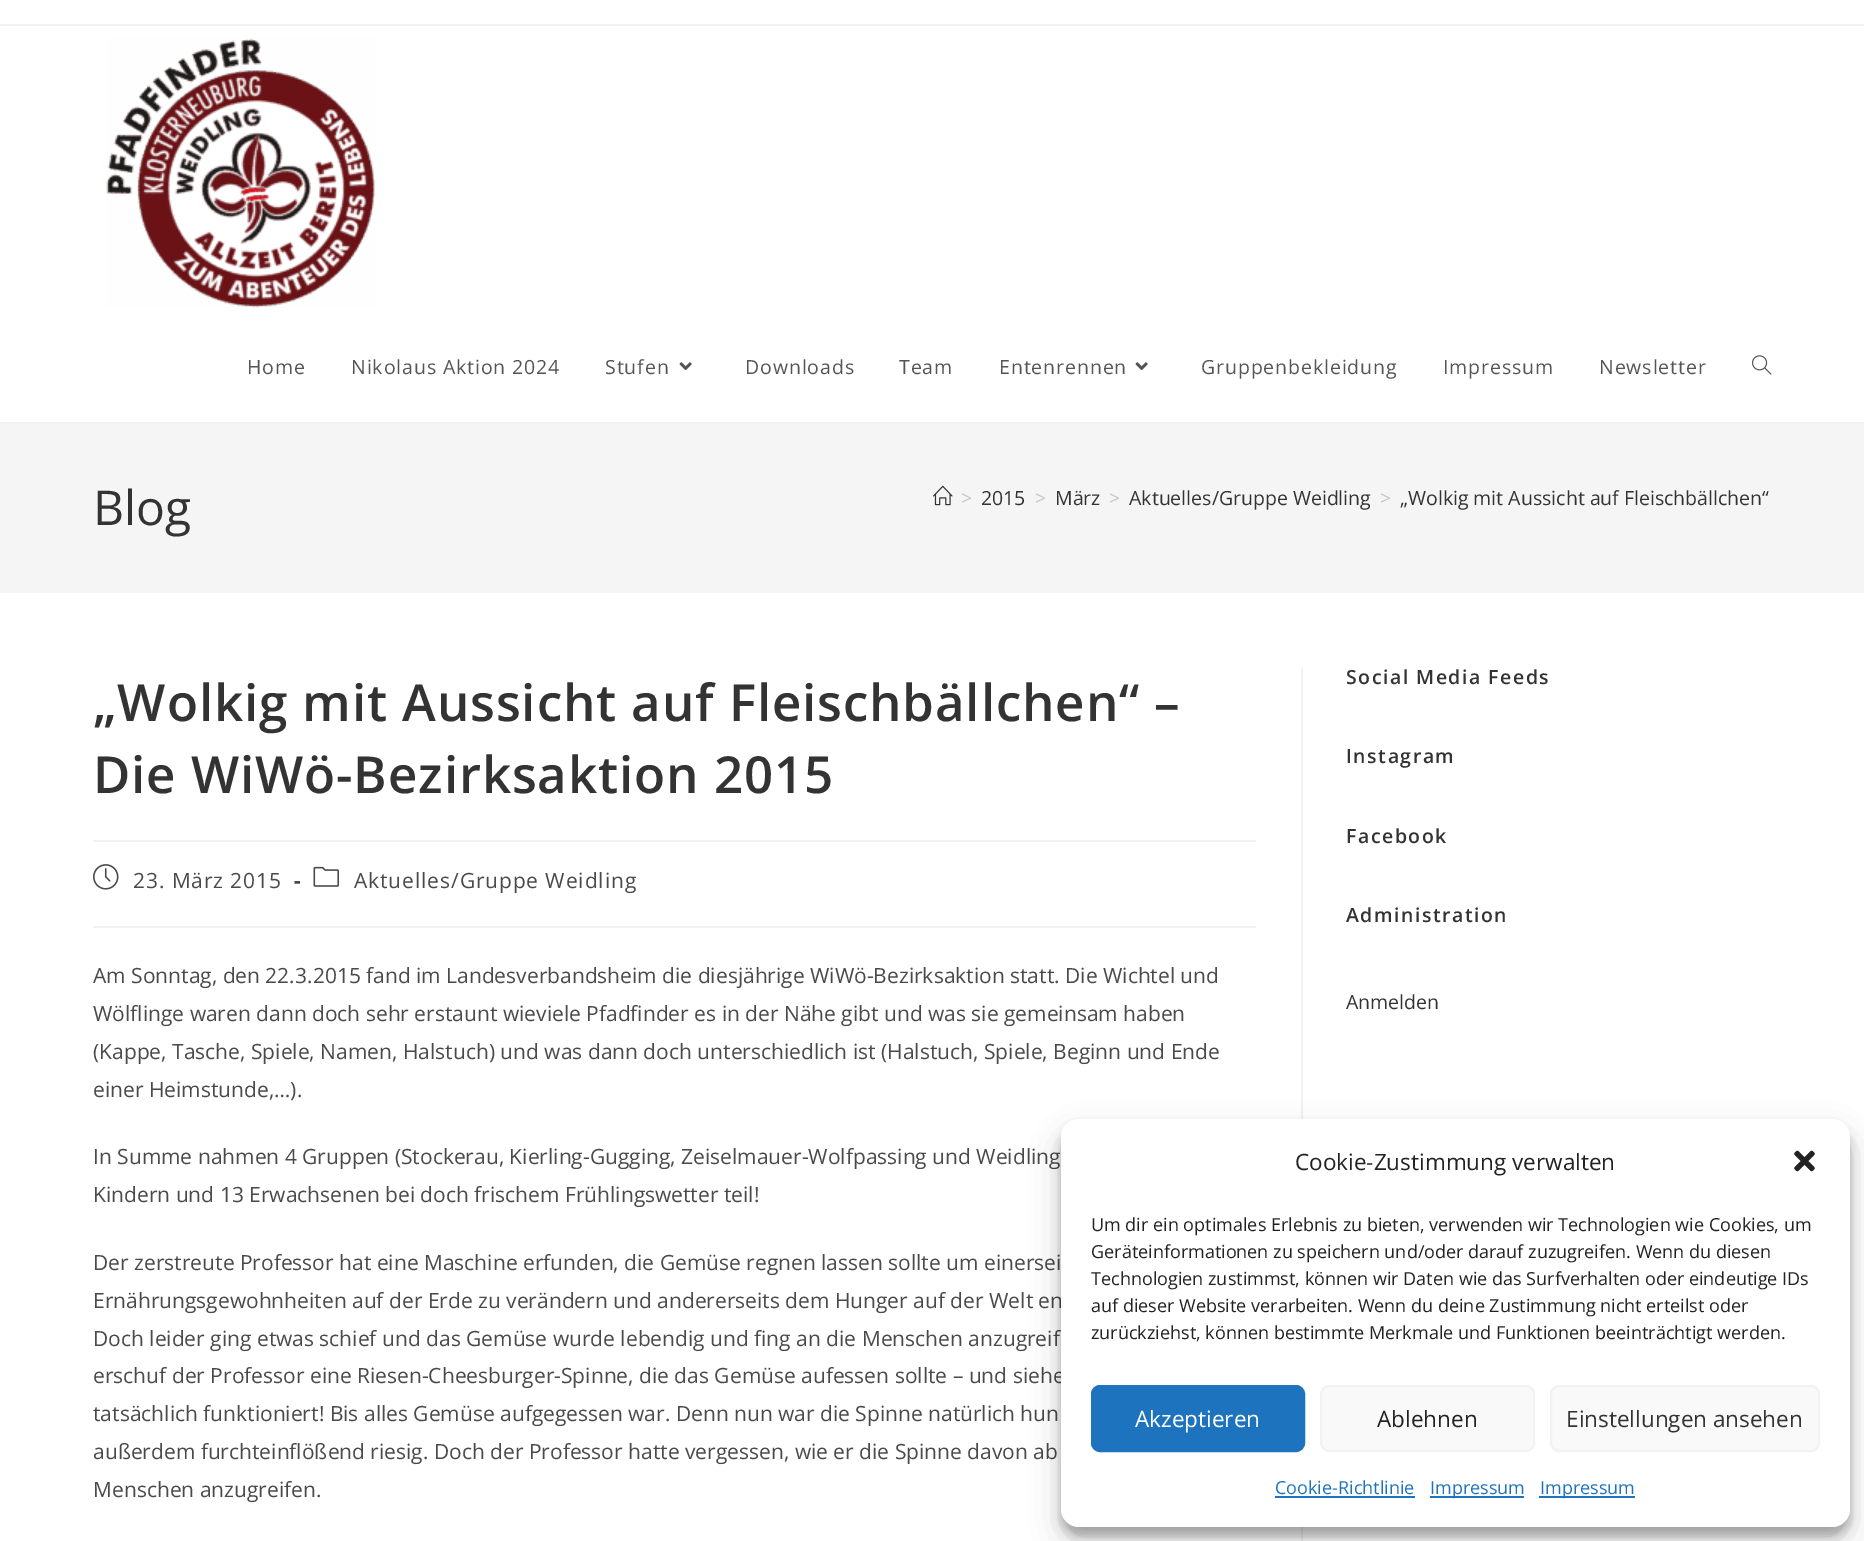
%!PS
<< /PageSize [1864 1541] /PageUsesTransparency true >> setpagedevice
/m/moveto load def
/f/fill load def
/s/stroke load def
/q/gsave load def
/Q_/grestore load def
/w/setlinewidth load def
/C { dup -16 bitshift 255 div exch dup -8 bitshift 255 and 255 div exch 255 and 255 div setrgbcolor } def
/F { [ exch dup neg 0 0 3 -1 roll 0 0 ] selectfont } def
/T { moveto show } def
/R { rectfill } def
/A { dup .setfillconstantalpha .setstrokeconstantalpha } def
/Q { 5 dict begin { /r /h /w /y /x } { exch def } forall
  x r add y moveto x w add y 2 copy h add r arct x w add y h add x 1 index r arct
  x y h add x y r arct x y 2 copy exch w add exch r arct closepath end } def
/S { 12 dict begin { /a /b /q /h /w /y /x } { exch def } forall gsave /was 0 def
  9 -2 -9 { dup b mul 4 div /e exch def 1 sub .425 mul 2.718 exch exp 1 add a .99 .min exch div /now exch def
    1 1 now sub 1 was sub div sub A /was now def
    w h .min e 2 mul add 0 gt { x e sub y e sub w e 2 mul add h e 2 mul add
      q e add b .6 mul add w h .min 2 div e add .min 0 .max Q fill } if } for grestore end } def
/I { 5 dict begin { /h /w /y /x /name } { exch def } forall
  gsave x y translate w h scale
  w h 8 [w 0 0 h 0 0] name (r) file false 3 colorimage grestore end } def
0 .pushpdf14devicefilter
0 1541 translate 1 -1 scale
4 setmiterlimit
16#FFFFFF C
0 0 1864 1541 R
16#F1F1F1 C
0 24 1864 2 R
0 422 1864 2 R
(1.rgb) 106 38 270 270 I
/OpenSans-Regular 19.5 F
16#555555 C
247 374 m .9 0 (Home) ashow
351 374 m .9 0 (Nikolaus Aktion 2024) ashow
605 374 m .9 0 (Stufen) ashow
(2.rgb) 679 362 13 9 I
745 374 m .9 0 (Downloads) ashow
899 374 m .9 0 (Team) ashow
999 374 m .9 0 (Entenrennen) ashow
(2.rgb) 1135 362 13 9 I
1201 374 m .9 0 (Gruppenbekleidung) ashow
1443 374 m .9 0 (Impressum) ashow
1599 374 m .9 0 (Newsletter) ashow
(3.rgb) 1752 355 20 20 I
16#F5F5F5 C
0 424 1864 169 R
/OpenSans-Regular 48 F
16#333333 C
(Blog) 93 525 T
(4.rgb) 933 485 20 21 I
/OpenSans-Regular 19.5 F
16#C6C6C6 C
(>) 961 505 T
16#333333 C
(2015) 981 505 T
16#C6C6C6 C
(>) 1035 505 T
16#333333 C
(März) 1055 505 T
16#C6C6C6 C
(>) 1109 505 T
16#333333 C
(Aktuelles/Gruppe Weidling) 1129 505 T
16#C6C6C6 C
(>) 1380 505 T
16#333333 C
(„Wolkig mit Aussicht auf Fleischbällchen“) 1400 505 T
16#F1F1F1 C
1301 668 2 873 R
93 840 1163 2 R
/OpenSans-SemiBold 51 F
16#333333 C
93 721 m .9 0 („Wolkig mit Aussicht auf Fleischbällchen“ –) ashow
93 793 m .9 0 (Die WiWö-Bezirksaktion 2015) ashow
16#F1F1F1 C
93 926 1163 2 R
(5.rgb) 93 864 26 26 I
/OpenSans-Regular 21 F
16#4A4A4A C
133 888 m .9 0 (23. März 2015) ashow
/OpenSans-Bold 21 F
294 888 m .9 0 (-) ashow
(6.rgb) 313 866 26 21 I
/OpenSans-Regular 21 F
354 888 m .9 0 (Aktuelles/Gruppe Weidling) ashow
(Am Sonntag, den 22.3.2015 fand im Landesverbandsheim die diesjährige WiWö-Bezirksaktion statt. Die Wichtel und) 93 983 T
(Wölflinge waren dann doch sehr erstaunt wieviele Pfadfinder es in der Nähe gibt und was sie gemeinsam haben) 93 1021 T
(\(Kappe, Tasche, Spiele, Namen, Halstuch\) und was dann doch unterschiedlich ist \(Halstuch, Spiele, Beginn und Ende) 93 1059 T
(einer Heimstunde,…\).) 93 1097 T
(In Summe nahmen 4 Gruppen \(Stockerau, Kierling-Gugging, Zeiselmauer-Wolfpassing und Weidling) 93 1164 T
(Kindern und 13 Erwachsenen bei doch frischem Frühlingswetter teil!) 93 1202 T
(Der zerstreute Professor hat eine Maschine erfunden, die Gemüse regnen lassen sollte um einersei) 93 1270 T
(Ernährungsgewohnheiten auf der Erde zu verändern und andererseits dem Hunger auf der Welt en) 93 1308 T
(Doch leider ging etwas schief und das Gemüse wurde lebendig und fing an die Menschen anzugreif) 93 1346 T
(erschuf der Professor eine Riesen-Cheesburger-Spinne, die das Gemüse aufessen sollte – und siehe) 93 1383 T
(tatsächlich funktioniert! Bis alles Gemüse aufgegessen war. Denn nun war die Spinne natürlich hun) 93 1421 T
(außerdem furchteinflößend riesig. Doch der Professor hatte vergessen, wie er die Spinne davon ab) 93 1459 T
(Menschen anzugreifen.) 93 1497 T
/OpenSans-SemiBold 19.5 F
16#333333 C
1346 684 m 1.5 0 (Social Media Feeds) ashow
1346 763 m 1.5 0 (Instagram) ashow
1346 843 m 1.5 0 (Facebook) ashow
1346 922 m 1.5 0 (Administration) ashow
/OpenSans-Regular 19.5 F
(Anmelden) 1346 1009 T
16#000000 C
1061 1128 789 408 18 4.5 .23 S
1061 1134 789 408 18 15 .19 S
16#FFFFFF C
1061 1119 789 408 18 Q f
/OpenSans-Regular 22.5 F
16#222222 C
(Cookie-Zustimmung verwalten) 1295 1170 T
(7.rgb) 1794 1150 21 22 I
/OpenSans-Regular 18 F
(Um dir ein optimales Erlebnis zu bieten, verwenden wir Technologien wie Cookies, um) 1091 1231 T
(Geräteinformationen zu speichern und/oder darauf zuzugreifen. Wenn du diesen) 1091 1258 T
(Technologien zustimmst, können wir Daten wie das Surfverhalten oder eindeutige IDs) 1091 1285 T
(auf dieser Website verarbeiten. Wenn du deine Zustimmung nicht erteilst oder) 1091 1312 T
(zurückziehst, können bestimmte Merkmale und Funktionen beeinträchtigt werden.) 1091 1339 T
16#1E73BE C
1092 1386 212 65 8 Q q f Q_
2 w
s
/OpenSans-Regular 22.5 F
16#FFFFFF C
(Akzeptieren) 1135 1427 T
16#F9F9F9 C
1321 1386 213 65 8 Q q f Q_
16#F2F2F2 C
s
16#222222 C
(Ablehnen) 1377 1427 T
16#F9F9F9 C
1551 1386 268 65 8 Q q f Q_
16#F2F2F2 C
s
16#333333 C
(Einstellungen ansehen) 1566 1427 T
/OpenSans-Regular 18 F
16#1E73BE C
(Cookie-Richtlinie) 1275 1494 T
1275 1496 140 2 R
1430 1496 94 2 R
(Impressum) 1430 1494 T
1539 1496 96 2 R
(Impressum) 1540 1494 T
.poppdf14devicefilter showpage
